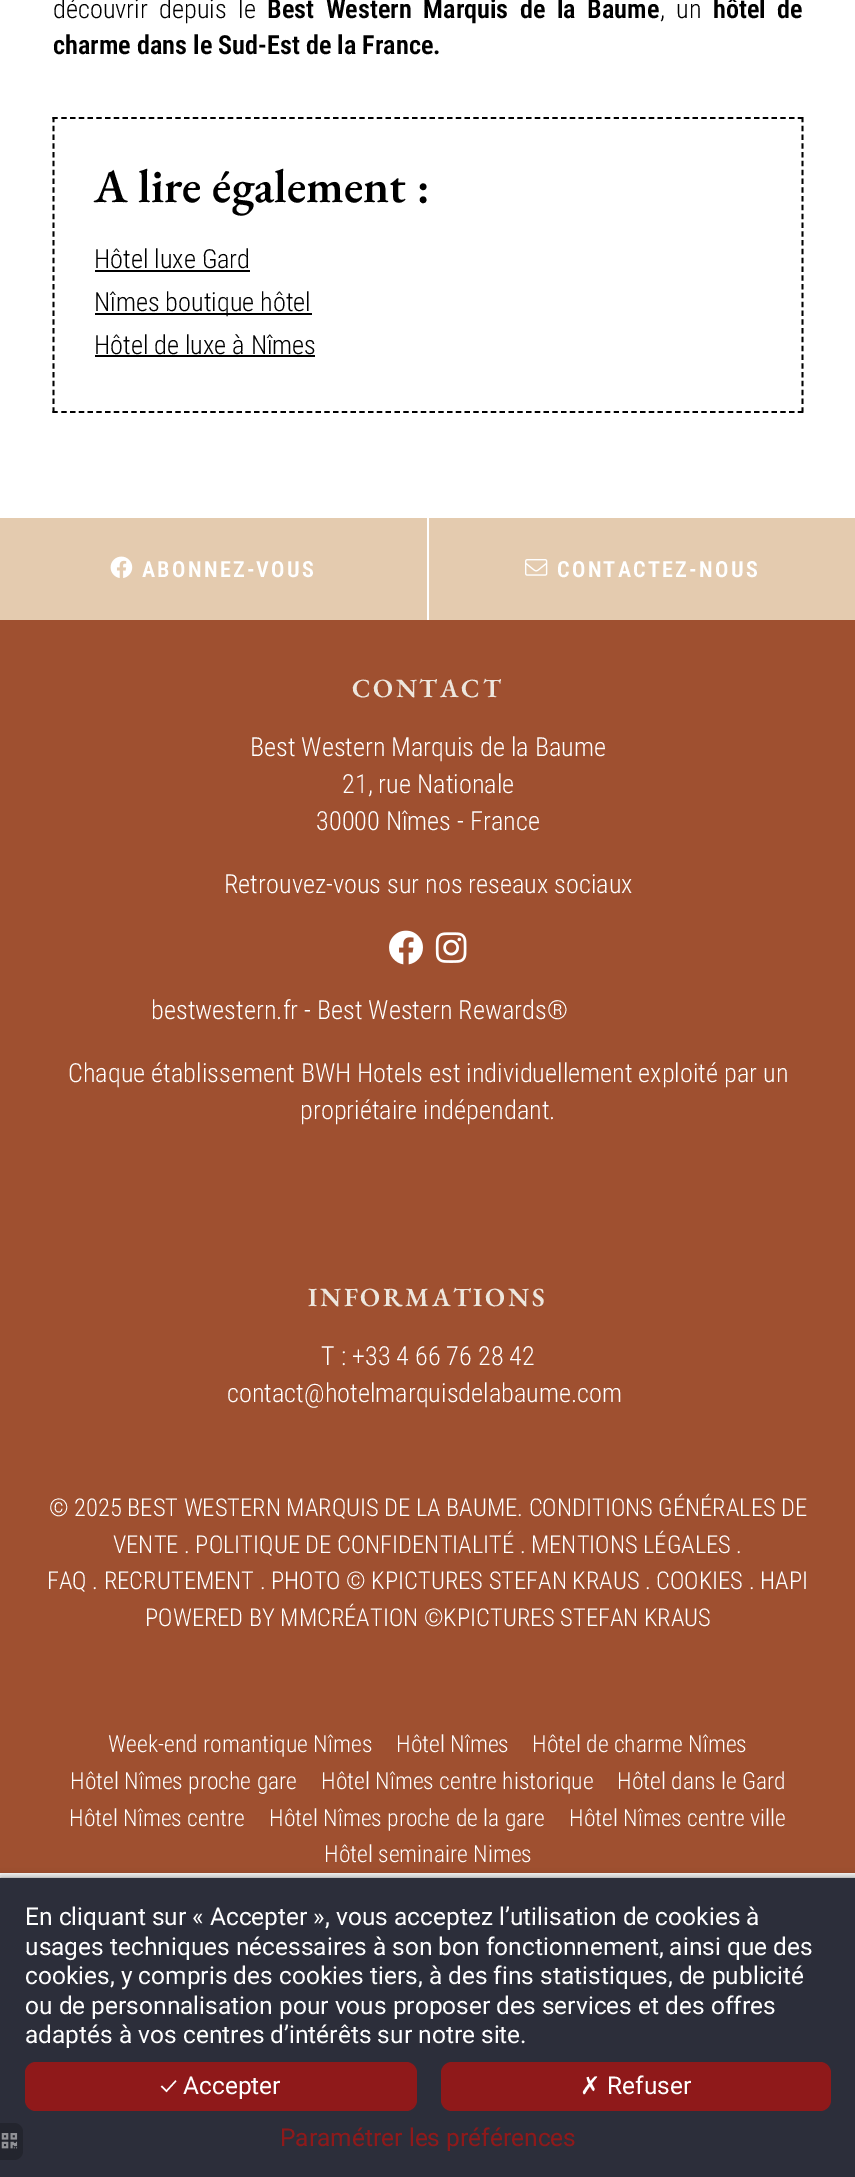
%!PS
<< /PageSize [855 2177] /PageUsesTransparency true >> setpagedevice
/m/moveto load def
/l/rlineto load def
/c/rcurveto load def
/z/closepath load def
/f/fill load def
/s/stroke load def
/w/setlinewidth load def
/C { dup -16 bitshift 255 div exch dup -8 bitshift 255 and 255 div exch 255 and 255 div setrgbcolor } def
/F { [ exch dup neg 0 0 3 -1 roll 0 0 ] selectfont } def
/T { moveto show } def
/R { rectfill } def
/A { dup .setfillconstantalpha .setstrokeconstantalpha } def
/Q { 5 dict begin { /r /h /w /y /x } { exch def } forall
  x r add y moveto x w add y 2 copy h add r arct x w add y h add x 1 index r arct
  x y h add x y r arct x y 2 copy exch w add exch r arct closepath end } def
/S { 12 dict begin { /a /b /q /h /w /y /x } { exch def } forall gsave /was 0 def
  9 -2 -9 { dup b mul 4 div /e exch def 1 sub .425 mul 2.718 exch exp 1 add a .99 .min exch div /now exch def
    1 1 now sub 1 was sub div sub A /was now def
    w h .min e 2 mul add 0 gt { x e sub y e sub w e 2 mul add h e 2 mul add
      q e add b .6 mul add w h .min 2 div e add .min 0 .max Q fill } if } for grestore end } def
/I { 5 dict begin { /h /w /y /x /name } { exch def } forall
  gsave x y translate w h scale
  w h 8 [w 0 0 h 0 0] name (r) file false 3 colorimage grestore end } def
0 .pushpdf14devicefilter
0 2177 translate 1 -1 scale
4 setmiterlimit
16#FFFFFF C
0 0 855 2177 R
/RobotoCondensed-Light 26.25 F
16#000000 C
53 18 m 5.5 0 32 (découvrir depuis le) widthshow
/RobotoCondensed-SemiBold 26.25 F
267 18 m 5.5 0 32 (Best Western Marquis de la Baume) widthshow
/RobotoCondensed-Light 26.25 F
660 18 m 5.5 0 32 (, un) widthshow
/RobotoCondensed-SemiBold 26.25 F
713 18 m 5.5 0 32 (hôtel de) widthshow
(charme dans le Sud-Est de la France.) 53 54 T
1.8 w
[5.25 3.52] 0 setdash
52.5 118 m 750.5 0 l s
[5.25 3.55] 0 setdash
802.5 117 m 0 296 l s
[5.25 3.52] 0 setdash
52.5 412 m 750.5 0 l s
[5.25 3.55] 0 setdash
53.5 117 m 0 296 l s
/EBGaramond-SemiBold 47.25 F
(A lire également :) 94 202 T
/RobotoCondensed-Light 26.25 F
(Hôtel luxe Gard) 94 268 T
95 270 155 2 R
95 313 217 2 R
(Nîmes boutique hôtel) 94 311 T
(Hôtel de luxe à Nîmes) 94 354 T
95 355 220 2 R
16#E4CBAF C
0 518 427 102 R
(1.rgb) 110 556 23 22 I
/RobotoCondensed-SemiBold 22.25 F
16#FFFFFF C
142 577 m 2.25 0 (ABONNEZ-VOUS) ashow
16#E4CBAF C
429 518 426 102 R
(2.rgb) 525 559 23 17 I
16#FFFFFF C
557 577 m 2.25 0 (CONTACTEZ-NOUS) ashow
16#9F5030 C
0 620 855 1253 R
/EBGaramond-SemiBold 26.25 F
16#EDE6DD C
352 697 m 2.6 0 (CONTACT) ashow
/RobotoCondensed-Light 26.25 F
16#FFFFFF C
(Best Western Marquis de la Baume) 250 756 T
(21, rue Nationale) 342 793 T
(30000 Nîmes - France) 316 830 T
(Retrouvez-vous sur nos reseaux sociaux) 224 893 T
(3.rgb) 389 930 34 35 I
(4.rgb) 435 932 32 31 I
(bestwestern.fr - Best Western Rewards®) 151 1019 T
(Chaque établissement BWH Hotels est individuellement exploité par un) 68 1082 T
(propriétaire indépendant.) 300 1119 T
/EBGaramond-SemiBold 26.25 F
16#EDE6DD C
308 1306 m 2.6 0 (INFORMATIONS) ashow
/RobotoCondensed-Light 26.25 F
16#FFFFFF C
(T : +33 4 66 76 28 42) 321 1365 T
(contact@hotelmarquisdelabaume.com) 227 1402 T
/RobotoCondensed-Light 24.5 F
(© 2025 BEST WESTERN MARQUIS DE LA BAUME. CONDITIONS GÉNÉRALES DE) 49 1516 T
(VENTE . POLITIQUE DE CONFIDENTIALITÉ . MENTIONS LÉGALES .) 113 1553 T
(FAQ . RECRUTEMENT . PHOTO © KPICTURES STEFAN KRAUS . COOKIES . HAPI) 47 1589 T
(POWERED BY MMCRÉATION ©KPICTURES STEFAN KRAUS) 145 1626 T
/RobotoCondensed-Light 23.6 F
(Week-end romantique Nîmes) 108 1752 T
(Hôtel Nîmes) 396 1752 T
(Hôtel de charme Nîmes) 532 1752 T
(Hôtel Nîmes proche gare) 70 1789 T
(Hôtel Nîmes centre historique) 321 1789 T
(Hôtel dans le Gard) 617 1789 T
(Hôtel Nîmes centre) 69 1826 T
(Hôtel Nîmes proche de la gare) 269 1826 T
(Hôtel Nîmes centre ville) 569 1826 T
(Hôtel seminaire Nimes) 324 1862 T
16#000000 C
0 1878 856 299 0 4.5 .5 S
16#2C2E3A C
0 1878 855 299 R
16#23252E C
0 2123 m 14 0 l 5 0 9 4 9 9 c 0 19 l 0 5 -4 9 -9 9 c -14 0 l z f
(5.rgb) 1 2133 17 16 I
/Roboto-Regular 24.5 F
16#FFFFFF C
(En cliquant sur « Accepter », vous acceptez l’utilisation de cookies à) 25 1925 T
(usages techniques nécessaires à son bon fonctionnement, ainsi que des) 25 1955 T
(cookies, y compris des cookies tiers, à des fins statistiques, de publicité) 25 1984 T
(ou de personnalisation pour vous proposer des services et des offres) 25 2014 T
(adaptés à vos centres d’intérêts sur notre site.) 25 2043 T
16#8F191A C
25 2062 392 49 11 Q f
/Ubuntu-Regular 24.5 F
16#FFFFFF C
(✓) 160 2094 T
/Roboto-Regular 24.5 F
(Accepter) 183 2094 T
16#8F191A C
441 2062 390 49 11 Q f
/DejaVuSans-Regular 24.5 F
16#FFFFFF C
(✗) 580 2094 T
/Roboto-Regular 24.5 F
(Refuser) 607 2094 T
16#8F191A C
(Paramétrer les préférences) 280 2146 T
.poppdf14devicefilter showpage
